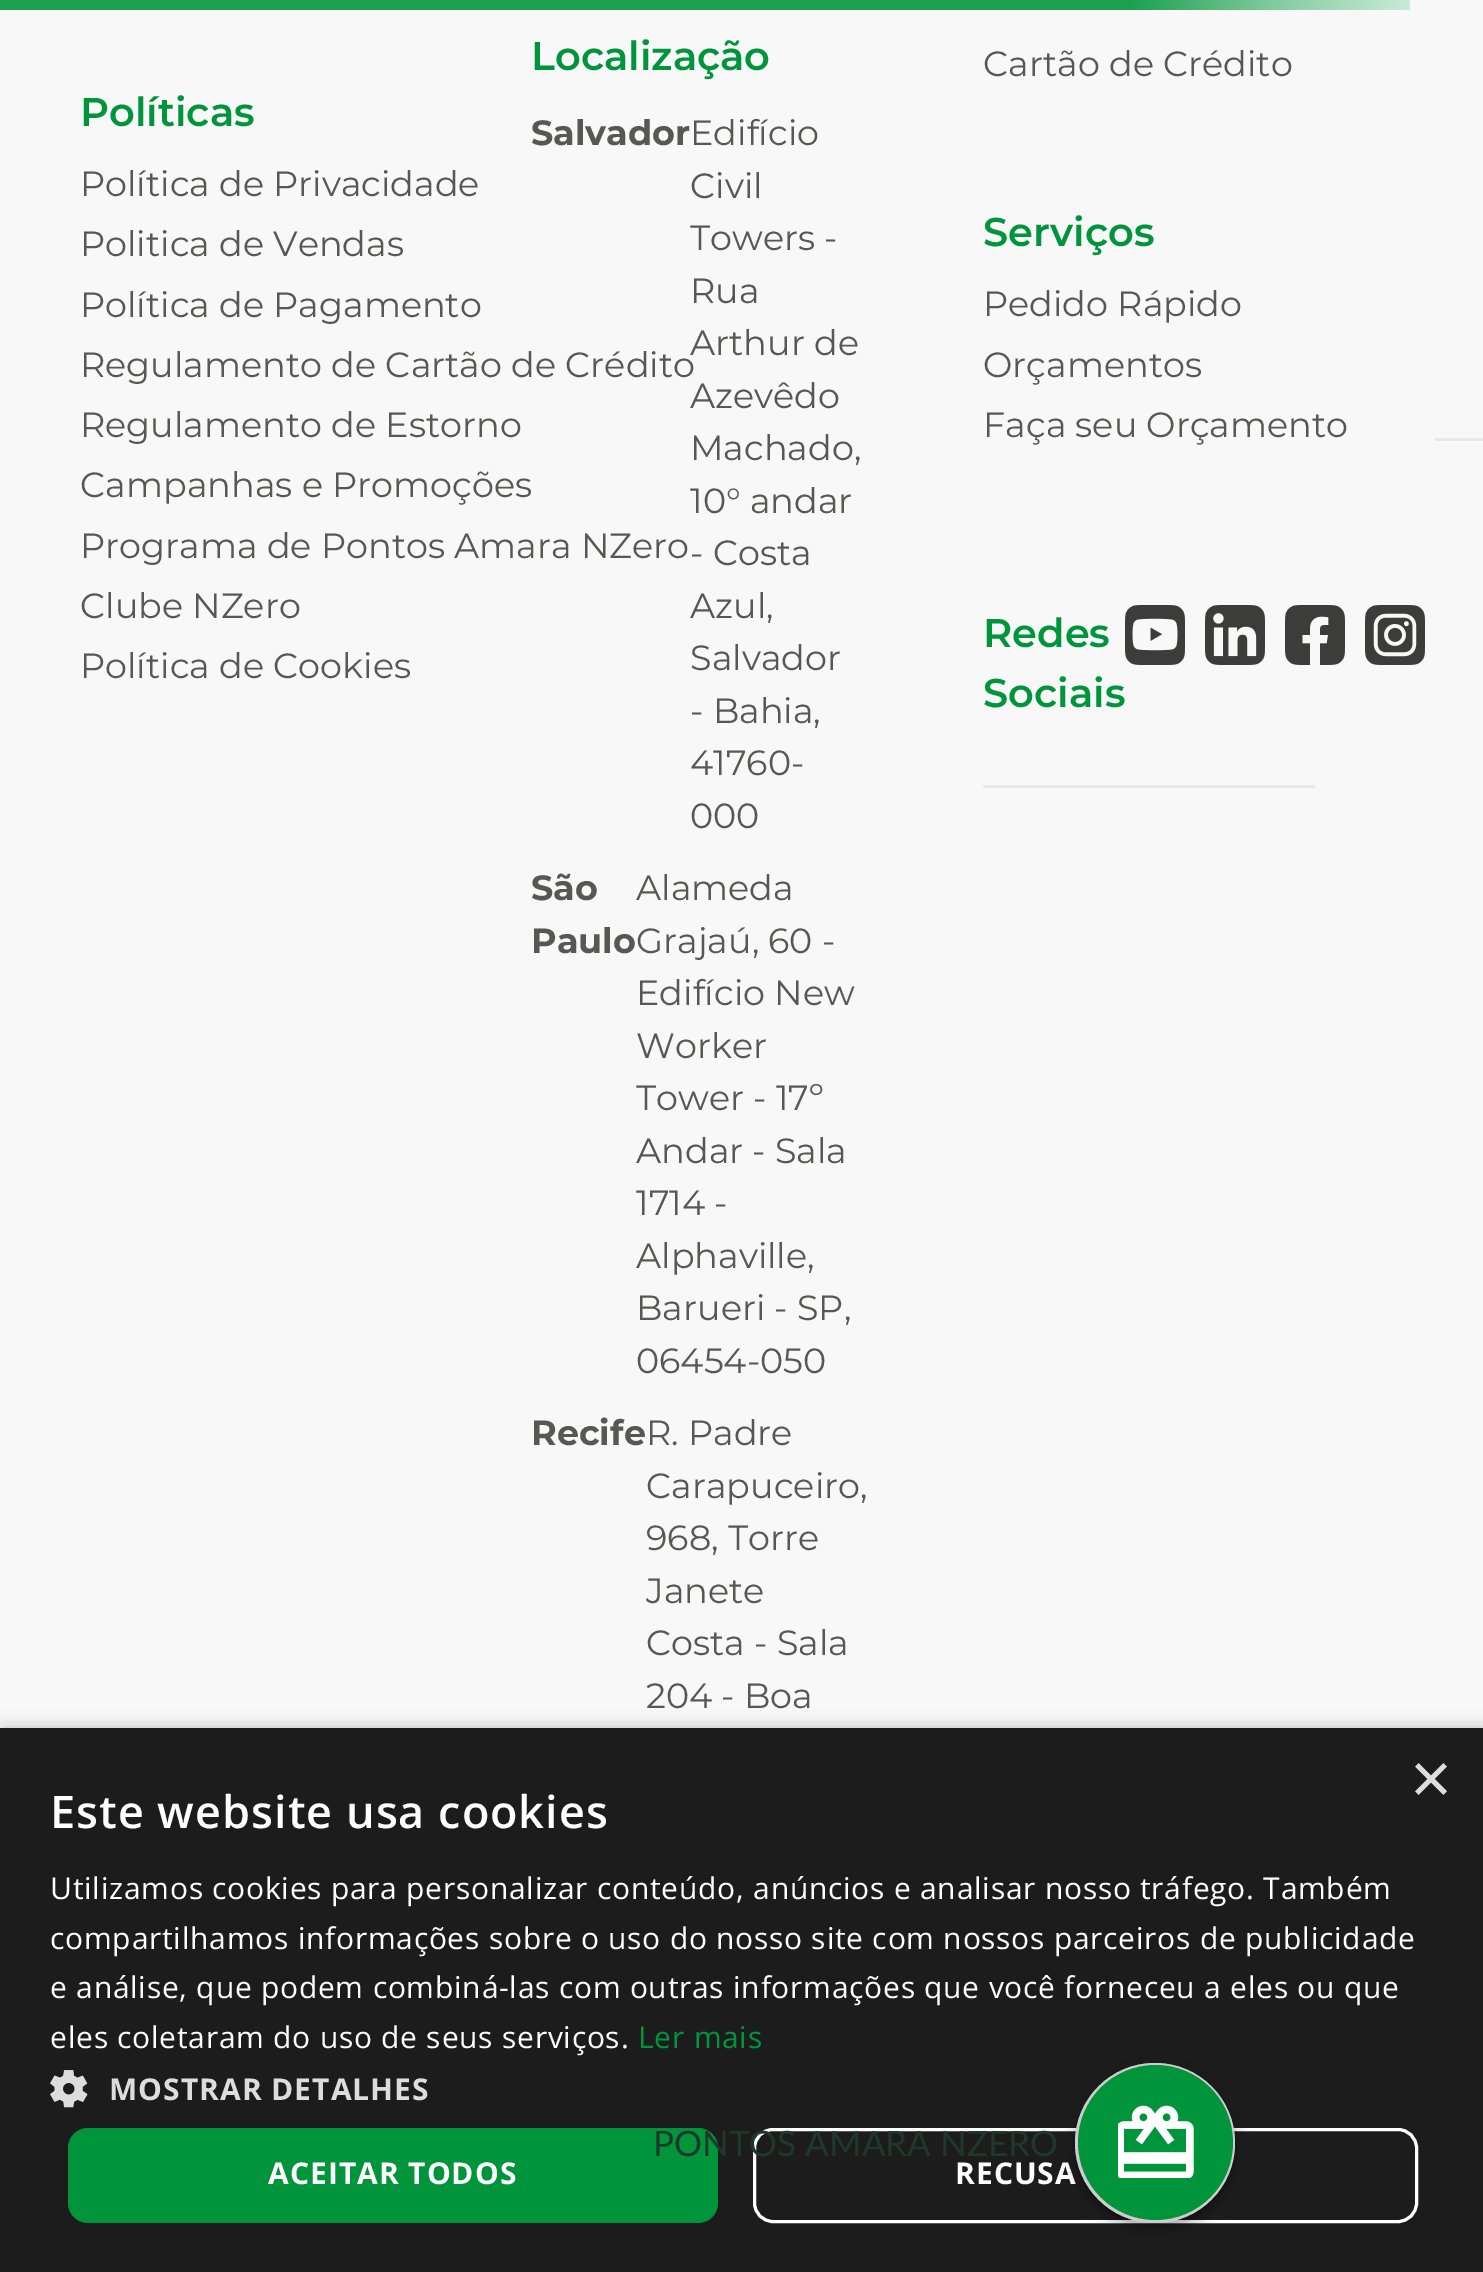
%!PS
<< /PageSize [1483 2272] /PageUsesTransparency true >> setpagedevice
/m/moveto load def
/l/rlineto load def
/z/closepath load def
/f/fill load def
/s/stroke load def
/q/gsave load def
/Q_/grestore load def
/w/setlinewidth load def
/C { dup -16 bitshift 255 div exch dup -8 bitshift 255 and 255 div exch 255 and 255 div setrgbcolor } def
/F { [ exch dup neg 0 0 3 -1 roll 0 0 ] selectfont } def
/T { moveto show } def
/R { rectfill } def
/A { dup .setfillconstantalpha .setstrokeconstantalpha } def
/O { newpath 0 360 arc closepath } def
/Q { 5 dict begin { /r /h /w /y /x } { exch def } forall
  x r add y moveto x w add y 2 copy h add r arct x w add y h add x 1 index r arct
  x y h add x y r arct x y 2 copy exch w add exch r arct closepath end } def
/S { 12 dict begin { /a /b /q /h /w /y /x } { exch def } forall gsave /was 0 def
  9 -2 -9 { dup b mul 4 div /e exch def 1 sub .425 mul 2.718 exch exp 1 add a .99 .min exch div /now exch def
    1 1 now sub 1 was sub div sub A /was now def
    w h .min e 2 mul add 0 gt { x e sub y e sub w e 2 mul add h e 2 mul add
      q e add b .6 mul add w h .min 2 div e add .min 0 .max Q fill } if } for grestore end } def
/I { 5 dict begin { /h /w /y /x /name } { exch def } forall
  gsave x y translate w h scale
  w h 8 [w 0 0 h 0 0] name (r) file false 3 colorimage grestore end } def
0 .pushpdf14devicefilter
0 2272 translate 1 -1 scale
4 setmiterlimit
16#F9F8F8 C
0 0 1483 2272 R
q 0 0 m 1410 0 l 0 10 l -1410 0 l z clip newpath
<< /ShadingType 2 /ColorSpace /DeviceRGB /Coords [0 5 1411 5] /Extend [true true] /Function << /FunctionType 3 /Domain [0 1] /Functions [<< /FunctionType 2 /Domain [0 1] /C0 [.102 .627 .31] /C1 [.102 .627 .31] /N 1 >> << /FunctionType 2 /Domain [0 1] /C0 [.102 .627 .31] /C1 [.502 .792 .616] /N 1 >> << /FunctionType 2 /Domain [0 1] /C0 [.502 .792 .616] /C1 [.8 .918 .847] /N 1 >>] /Bounds [.8 .9] /Encode [0 1 0 1 0 1] >> >> shfill Q_
/Montserrat-SemiBold 40 F
16#00953B C
(Políticas) 80 126 T
/Montserrat-Regular 35 F
16#575756 C
(Política de Privacidade) 80 196 T
(Politica de Vendas) 80 256 T
(Política de Pagamento) 80 317 T
(Regulamento de Cartão de Crédito) 80 377 T
(Regulamento de Estorno) 80 437 T
(Campanhas e Promoções) 80 497 T
(Programa de Pontos Amara NZero) 80 558 T
(Clube NZero) 80 618 T
(Política de Cookies) 80 678 T
/Montserrat-SemiBold 40 F
16#00953B C
(Localização) 531 70 T
/Montserrat-Bold 35 F
16#575756 C
(Salvador) 531 145 T
/Montserrat-Regular 35 F
(Edifício) 690 145 T
(Civil) 690 198 T
(Towers -) 690 250 T
(Rua) 690 303 T
(Arthur de) 690 355 T
(Azevêdo) 690 408 T
(Machado,) 690 460 T
(10° andar) 690 513 T
(- Costa) 690 565 T
(Azul,) 690 618 T
(Salvador) 690 670 T
(- Bahia,) 690 723 T
(41760-) 690 775 T
(000) 690 828 T
/Montserrat-Bold 35 F
(São) 531 900 T
(Paulo) 531 953 T
/Montserrat-Regular 35 F
(Alameda) 636 900 T
(Grajaú, 60 -) 636 953 T
(Edifício New) 636 1005 T
(Worker) 636 1058 T
(Tower - 17º) 636 1110 T
(Andar - Sala) 636 1163 T
(1714 -) 636 1215 T
(Alphaville,) 636 1268 T
(Barueri - SP,) 636 1320 T
(06454-050) 636 1373 T
/Montserrat-Bold 35 F
(Recife) 531 1445 T
/Montserrat-Regular 35 F
(R. Padre) 646 1445 T
(Carapuceiro,) 646 1498 T
(968, Torre) 646 1550 T
(Janete) 646 1603 T
(Costa - Sala) 646 1655 T
(204 - Boa) 646 1708 T
(Cartão de Crédito) 983 76 T
/Montserrat-SemiBold 40 F
16#00953B C
(Serviços) 983 246 T
/Montserrat-Regular 35 F
16#575756 C
(Pedido Rápido) 983 316 T
(Orçamentos) 983 377 T
(Faça seu Orçamento) 983 437 T
16#E8E8E8 C
983 785 332 3 R
/Montserrat-SemiBold 40 F
16#00953B C
(Redes) 983 647 T
(Sociais) 983 707 T
(1.rgb) 1125 605 60 60 I
(2.rgb) 1205 605 60 60 I
(3.rgb) 1285 605 60 60 I
(4.rgb) 1365 605 60 60 I
16#E8E8E8 C
1435 438 48 3 R
16#000000 C
3 1733 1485 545 0 10 .35 S
16#1C1C1C C
0 1728 1483 544 R
/LiberationSans-Regular 72 F
16#DDDDDD C
(×) 1410 1803 T
/OpenSans-SemiBold 45 F
16#FFFFFF C
50 1828 m 1 0 (Este website usa cookies) ashow
/OpenSans-Regular 30 F
50 1899 m .75 0 (Utilizamos cookies para personalizar conteúdo, anúncios e analisar nosso tráfego. Também) ashow
50 1949 m .75 0 (compartilhamos informações sobre o uso do nosso site com nossos parceiros de publicidade) ashow
50 1998 m .75 0 (e análise, que podem combiná-las com outras informações que você forneceu a eles ou que) ashow
50 2048 m .75 0 (eles coletaram do uso de seus serviços.) ashow
16#00953B C
638 2048 m .75 0 (Ler mais) ashow
(5.rgb) 50 2070 38 38 I
/OpenSans-Bold 30 F
16#DDDDDD C
109 2100 m 1 0 (MOSTRAR DETALHES) ashow
16#00953B C
68 2128 650 95 20 Q f
16#FFFFFF C
268 2184 m 1 0 (ACEITAR TODOS) ashow
3 w
754.5 2129.5 662 92 18.5 Q s
955 2184 m 1 0 (RECUSA) ashow
16#000000 C
1075 2065 160 160 80 12.5 .12 S
1075 2073 160 160 80 6 .14 S
1078 2070 155 155 77.5 5 .2 S
16#FFFFFF C
1155 2143 80 O f
0.2 A
16#000000 C
1155 2143 78.5 O s
1 A
16#00953B C
1155.5 2142.5 77.5 O f
/Lato-Regular 35 F
16#1F3829 C
(PONTOS AMARA NZERO) 653 2156 T
(6.rgb) 1118 2105 76 73 I
.poppdf14devicefilter showpage
